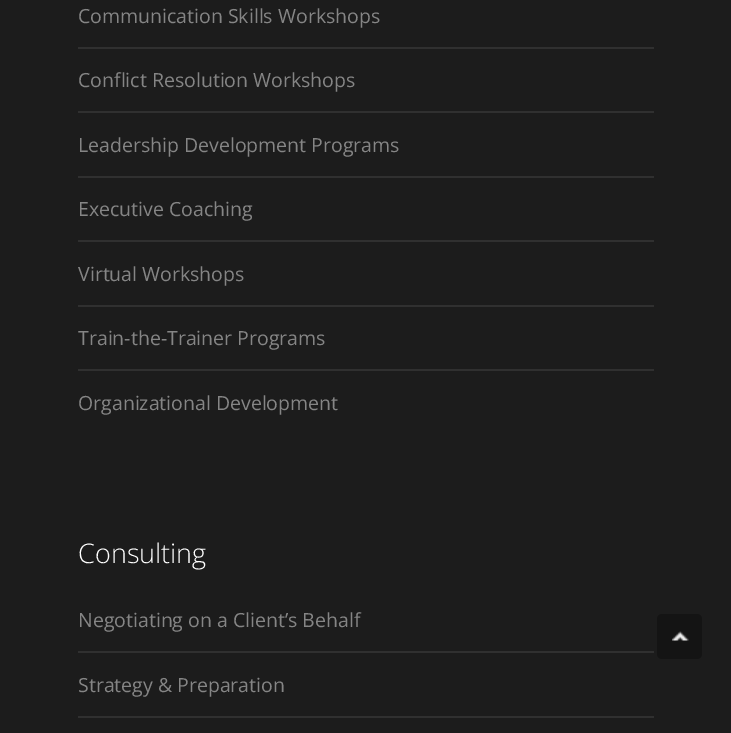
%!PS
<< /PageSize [731 733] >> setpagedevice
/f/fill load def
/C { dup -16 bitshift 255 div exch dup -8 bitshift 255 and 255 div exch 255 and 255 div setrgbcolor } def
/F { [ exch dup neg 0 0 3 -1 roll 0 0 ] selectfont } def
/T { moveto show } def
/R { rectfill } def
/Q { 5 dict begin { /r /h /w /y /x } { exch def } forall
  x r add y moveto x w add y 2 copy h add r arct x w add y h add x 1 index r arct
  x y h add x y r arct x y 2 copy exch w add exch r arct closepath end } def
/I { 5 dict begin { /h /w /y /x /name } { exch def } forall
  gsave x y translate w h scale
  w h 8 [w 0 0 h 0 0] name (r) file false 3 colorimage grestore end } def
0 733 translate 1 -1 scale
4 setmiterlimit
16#1C1C1C C
0 0 731 733 R
16#303030 C
78 47 576 2 R
/OpenSans-Regular 19.5 F
16#858585 C
(Communication Skills Workshops) 78 23 T
16#303030 C
78 111 576 2 R
16#858585 C
(Conflict Resolution Workshops) 78 87 T
16#303030 C
78 176 576 2 R
16#858585 C
(Leadership Development Programs) 78 152 T
16#303030 C
78 240 576 2 R
16#858585 C
(Executive Coaching) 78 216 T
16#303030 C
78 305 576 2 R
16#858585 C
(Virtual Workshops) 78 281 T
16#303030 C
78 369 576 2 R
16#858585 C
(Train-the-Trainer Programs) 78 345 T
(Organizational Development) 78 410 T
/OpenSans-Light 27 F
16#FFFFFF C
(Consulting) 78 563 T
16#303030 C
78 651 576 2 R
/OpenSans-Regular 19.5 F
16#858585 C
(Negotiating on a Client’s Behalf) 78 627 T
16#303030 C
78 716 576 2 R
16#858585 C
(Strategy & Preparation) 78 692 T
16#141414 C
657 614 45 45 5 Q f
(1.rgb) 672 631 17 10 I
showpage
